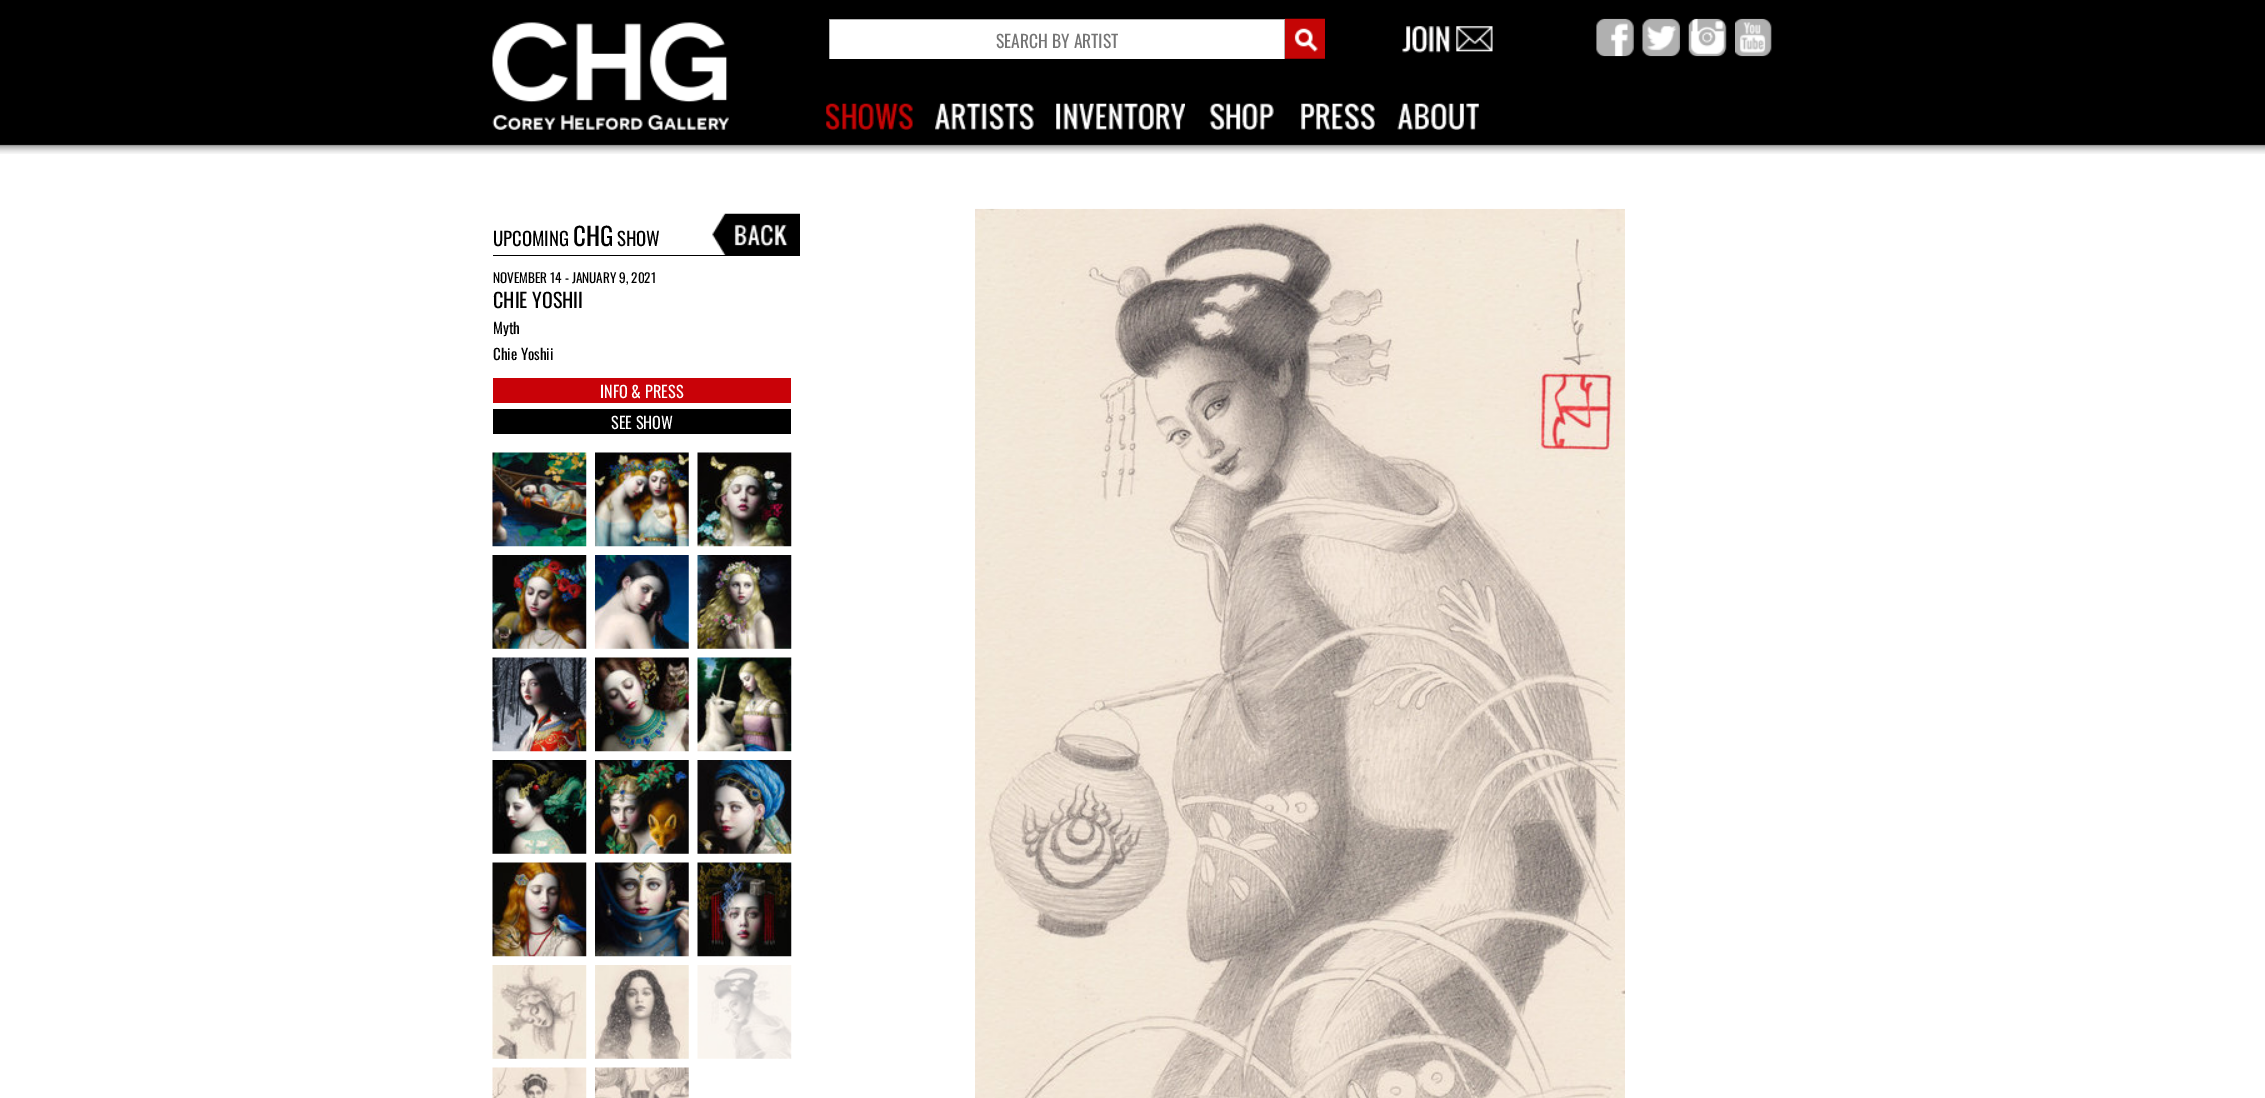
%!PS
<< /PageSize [2265 1098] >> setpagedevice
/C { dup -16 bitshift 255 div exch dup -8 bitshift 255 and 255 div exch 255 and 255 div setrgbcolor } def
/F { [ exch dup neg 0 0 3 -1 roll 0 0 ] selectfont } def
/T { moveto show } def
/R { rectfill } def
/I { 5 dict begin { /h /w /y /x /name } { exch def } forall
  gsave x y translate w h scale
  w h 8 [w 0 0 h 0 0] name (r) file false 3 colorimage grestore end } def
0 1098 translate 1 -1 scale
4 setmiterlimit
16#FFFFFF C
0 0 2265 1098 R
(1.rgb) 0 0 2265 154 I
(2.rgb) 492 22 237 108 I
830 20 454 39 R
16#B2B2B2 C
829 19 456 1 R
1284 19 1 40 R
829 19 1 40 R
/Oswald-Regular 17.5 F
16#757575 C
(SEARCH BY ARTIST) 996 48 T
(3.rgb) 1285 18 40 41 I
(4.rgb) 1402 26 91 27 I
(5.rgb) 826 103 87 27 I
(6.rgb) 935 103 99 27 I
(7.rgb) 1056 103 129 27 I
(8.rgb) 1209 103 65 27 I
(9.rgb) 1301 103 74 27 I
(10.rgb) 1397 103 82 27 I
(11.rgb) 1596 18 38 39 I
(12.rgb) 1642 18 38 39 I
(13.rgb) 1688 18 39 39 I
(14.rgb) 1735 18 37 39 I
16#000000 C
493 255 307 1 R
/Oswald-Regular 18.75 F
(UPCOMING) 493 246 T
/Oswald-Regular 25 F
(CHG) 573 246 T
/Oswald-Regular 18.75 F
(SHOW) 617 246 T
(15.rgb) 712 213 88 42 I
/Oswald-Regular 13.25 F
(NOVEMBER 14 - JANUARY 9, 2021) 493 283 T
/Oswald-Regular 20 F
(CHIE YOSHII) 493 308 T
/Oswald-Regular 15 F
(Myth) 493 334 T
(Chie Yoshii) 493 360 T
16#C90208 C
493 378 298 25 R
/Oswald-Regular 16.25 F
16#FFFFFF C
(INFO & PRESS) 600 398 T
16#000000 C
493 409 298 25 R
16#FFFFFF C
(SEE SHOW) 611 429 T
(16.rgb) 492 452 95 95 I
(17.rgb) 595 452 94 95 I
(18.rgb) 697 452 95 95 I
(19.rgb) 492 555 95 94 I
(20.rgb) 595 555 94 94 I
(21.rgb) 697 555 95 94 I
(22.rgb) 492 657 95 95 I
(23.rgb) 595 657 94 95 I
(24.rgb) 697 657 95 95 I
(25.rgb) 492 760 95 94 I
(26.rgb) 595 760 94 94 I
(27.rgb) 697 760 95 94 I
(28.rgb) 492 862 95 95 I
(29.rgb) 595 862 94 95 I
(30.rgb) 697 862 95 95 I
(31.rgb) 492 965 95 94 I
(32.rgb) 595 965 94 94 I
(33.rgb) 697 965 95 94 I
(34.rgb) 492 1067 95 31 I
(35.rgb) 595 1067 94 31 I
(36.rgb) 975 208 650 890 I
showpage
